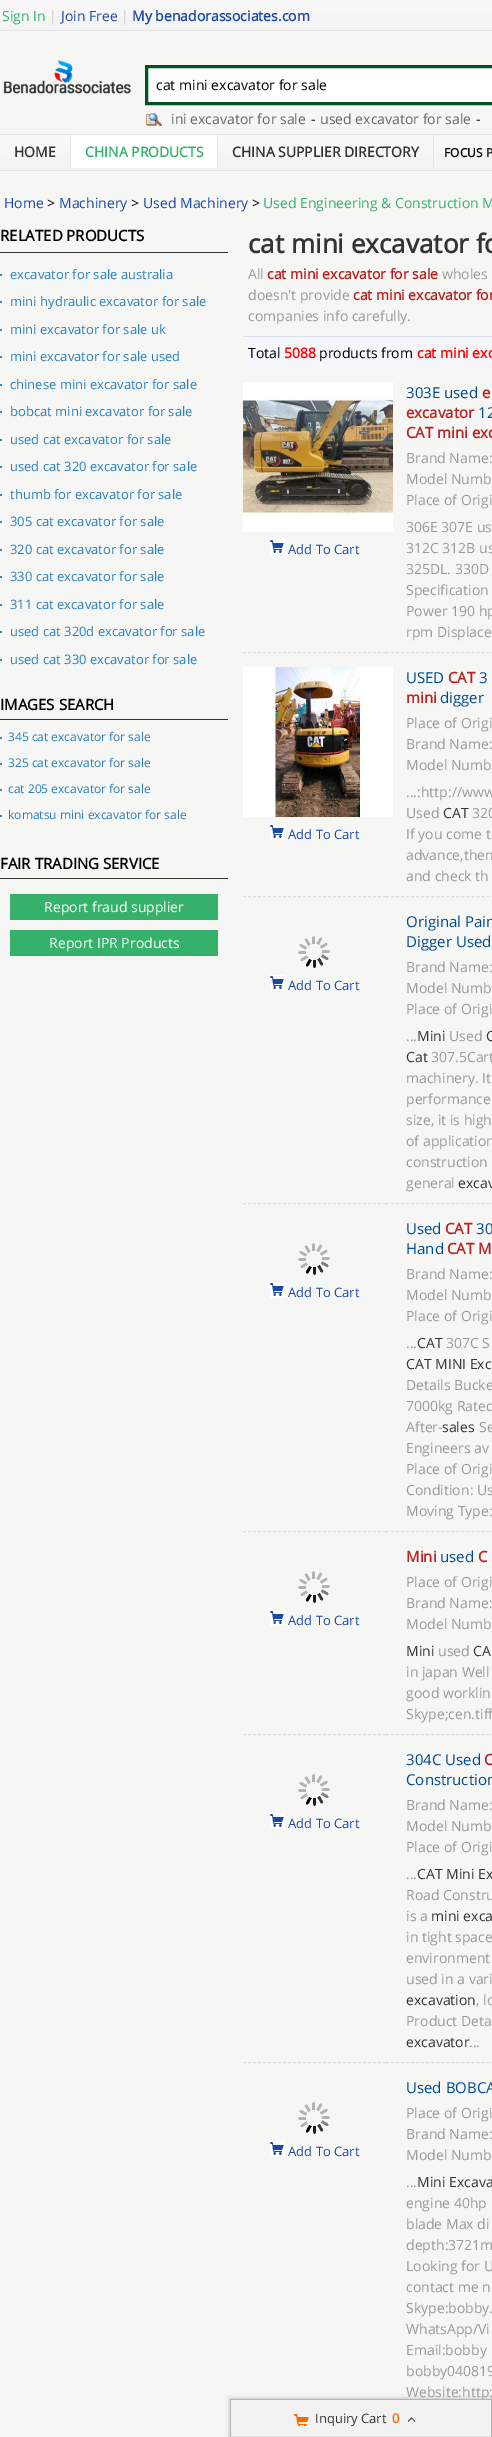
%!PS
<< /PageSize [492 2437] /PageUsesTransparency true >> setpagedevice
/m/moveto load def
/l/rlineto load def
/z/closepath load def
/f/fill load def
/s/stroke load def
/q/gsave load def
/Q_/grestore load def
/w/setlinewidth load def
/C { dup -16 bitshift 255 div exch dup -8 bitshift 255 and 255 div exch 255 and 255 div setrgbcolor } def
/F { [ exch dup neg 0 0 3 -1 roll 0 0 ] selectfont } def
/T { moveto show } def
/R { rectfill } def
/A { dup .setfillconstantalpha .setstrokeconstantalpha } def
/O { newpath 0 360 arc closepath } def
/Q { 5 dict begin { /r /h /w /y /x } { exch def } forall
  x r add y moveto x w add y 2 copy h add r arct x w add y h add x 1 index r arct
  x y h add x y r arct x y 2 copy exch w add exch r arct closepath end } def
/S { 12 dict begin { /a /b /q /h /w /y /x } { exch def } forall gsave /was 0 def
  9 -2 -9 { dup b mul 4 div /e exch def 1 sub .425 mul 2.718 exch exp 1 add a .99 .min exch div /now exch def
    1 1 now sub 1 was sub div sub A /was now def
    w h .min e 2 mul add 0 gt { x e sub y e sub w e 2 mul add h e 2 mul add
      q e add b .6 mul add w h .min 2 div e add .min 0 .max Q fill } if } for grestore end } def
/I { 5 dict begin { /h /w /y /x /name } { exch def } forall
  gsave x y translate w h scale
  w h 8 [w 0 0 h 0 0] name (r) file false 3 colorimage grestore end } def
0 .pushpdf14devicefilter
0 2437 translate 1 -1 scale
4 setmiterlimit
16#F6F6F4 C
0 0 492 2437 R
q 0 0 m 492 0 l 0 30 l -492 0 l z clip newpath
<< /ShadingType 2 /ColorSpace /DeviceRGB /Coords [246 0 246 30] /Extend [true true] /Function << /FunctionType 2 /Domain [0 1] /C0 [.976 .976 .976] /C1 [.953 .953 .953] /N 1 >> >> shfill Q_
16#E5E5E5 C
0 30 492 1 R
/OpenSans-Regular 14 F
16#35B16C C
(Sign In) 2 21 T
16#CCCCCC C
(|) 49 21 T
16#1C49A4 C
(Join Free) 61 21 T
16#CCCCCC C
(|) 121 21 T
/OpenSans-Bold 14 F
16#1C49A4 C
(My benadorassociates.com) 132 21 T
(1.rgb) 3 60 128 34 I
16#FFFFFF C
146.5 66.5 m 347 0 l 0 37 l -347 0 l z q f Q_
16#005124 C
3 w
s
/OpenSans-Regular 14 F
16#000000 C
(cat mini excavator for sale) 156 90 T
(2.rgb) 145 113 18 13 I
16#666666 C
(ini excavator for sale) 171 124 T
16#000000 C
(-) 311 124 T
16#666666 C
(used excavator for sale) 320 124 T
16#000000 C
(-) 476 124 T
q 0 135 m 492 0 l 0 35 l -492 0 l z clip newpath
<< /ShadingType 2 /ColorSpace /DeviceRGB /Coords [246 135 246 170] /Extend [true true] /Function << /FunctionType 2 /Domain [0 1] /C0 [.976 .976 .976] /C1 [.953 .953 .953] /N 1 >> >> shfill Q_
16#E5E5E5 C
0 134 492 1 R
0 170 492 1 R
16#E6E6E6 C
70 135 1 33 R
/OpenSans-Bold 14 F
16#333333 C
(HOME) 14 157 T
16#FFFFFF C
71 135 146 33 R
16#E6E6E6 C
217 135 1 33 R
16#35B16C C
(CHINA PRODUCTS) 85 157 T
16#E6E6E6 C
433 135 1 33 R
16#333333 C
(CHINA SUPPLIER DIRECTORY) 232 157 T
/OpenSans-Bold 12 F
16#000000 C
(FOCUS P) 444 157 T
/OpenSans-Regular 14 F
16#1C49A4 C
(Home) 4 208 T
16#000000 C
(>) 47 208 T
16#1C49A4 C
(Machinery) 59 208 T
16#000000 C
(>) 131 208 T
16#1C49A4 C
(Used Machinery) 143 208 T
16#000000 C
(>) 252 208 T
16#35B16C C
(Used Engineering & Construction M) 263 208 T
16#333333 C
0 252 228 1 R
/OpenSans-Bold 15 F
16#000000 C
(RELATED PRODUCTS) 0 241 T
16#2980B9 C
1 275 1 O f
/OpenSans-Regular 13 F
(excavator for sale australia) 10 279 T
1 302 1 O f
(mini hydraulic excavator for sale) 10 306 T
1 330 1 O f
(mini excavator for sale uk) 10 334 T
1 357 1 O f
(mini excavator for sale used) 10 361 T
1 385 1 O f
(chinese mini excavator for sale) 10 389 T
1 412 1 O f
(bobcat mini excavator for sale) 10 416 T
1 440 1 O f
(used cat excavator for sale) 10 444 T
1 467 1 O f
(used cat 320 excavator for sale) 10 471 T
1 495 1 O f
(thumb for excavator for sale) 10 499 T
1 522 1 O f
(305 cat excavator for sale) 10 526 T
1 550 1 O f
(320 cat excavator for sale) 10 554 T
1 577 1 O f
(330 cat excavator for sale) 10 581 T
1 605 1 O f
(311 cat excavator for sale) 10 609 T
1 632 1 O f
(used cat 320d excavator for sale) 10 636 T
1 660 1 O f
(used cat 330 excavator for sale) 10 664 T
16#333333 C
0 719 228 1 R
/OpenSans-Bold 15 F
16#000000 C
(IMAGES SEARCH) 0 710 T
16#2980B9 C
1 738 1 O f
/OpenSans-Regular 12 F
(345 cat excavator for sale) 8 741 T
1 764 1 O f
(325 cat excavator for sale) 8 767 T
1 790 1 O f
(cat 205 excavator for sale) 8 793 T
1 816 1 O f
(komatsu mini excavator for sale) 8 819 T
16#333333 C
0 878 228 1 R
/OpenSans-Bold 15 F
16#000000 C
(FAIR TRADING SERVICE) 0 869 T
16#35B16C C
10 894 208 26 R
/OpenSans-Regular 14 F
16#FFFFFF C
(Report fraud supplier) 44 912 T
16#35B16C C
10 930 208 26 R
16#FFFFFF C
(Report IPR Products) 49 948 T
/OpenSans-Bold 26 F
16#333333 C
(cat mini excavator fo) 248 253 T
/OpenSans-Regular 14 F
16#999999 C
(All) 248 279 T
/OpenSans-Bold 14 F
16#B82220 C
(cat mini excavator for sale) 267 279 T
/OpenSans-Regular 14 F
16#999999 C
(wholes) 442 279 T
(doesn't provide) 248 300 T
/OpenSans-Bold 14 F
16#B82220 C
(cat mini excavator for) 353 300 T
/OpenSans-Regular 14 F
16#999999 C
(companies info carefully.) 248 321 T
16#F5F7FA C
243 337 249 31 R
16#DAE2ED C
243 336 249 1 R
16#000000 C
(Total) 248 358 T
/OpenSans-Bold 14 F
16#FF0000 C
(5088) 284 358 T
/OpenSans-Regular 14 F
16#000000 C
(products from) 319 358 T
/OpenSans-Bold 14 F
16#FF0000 C
(cat mini exc) 417 358 T
16#DCDCDC C
1 w
[3 2] 0 setdash
243 652.5 m 143 0 l s
(3.rgb) 243 382 150 150 I
(4.rgb) 270 539 15 16 I
/OpenSans-Regular 13 F
16#1C49A4 C
(Add To Cart) 288 554 T
16#DCDCDC C
[3 2.03] 0 setdash
386 652.5 m 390 0 l s
/OpenSans-Regular 15 F
16#004B91 C
(303E used) 406 398 T
/OpenSans-Bold 15 F
16#B82220 C
(e) 482 398 T
(excavator) 406 418 T
/OpenSans-Regular 15 F
16#004B91 C
(12) 478 418 T
/OpenSans-Bold 15 F
16#B82220 C
(CAT mini exc) 406 438 T
/OpenSans-Regular 14 F
16#999999 C
(Brand Name:) 406 463 T
(Model Numb) 406 484 T
(Place of Origi) 406 505 T
(306E 307E us) 406 532 T
(312C 312B us) 406 553 T
(325DL. 330D) 406 574 T
(Specification) 406 595 T
(Power 190 hp) 406 616 T
(rpm Displace) 406 637 T
16#DCDCDC C
[3 2] 0 setdash
243 896.5 m 143 0 l s
(5.rgb) 243 667 150 150 I
(4.rgb) 270 824 15 16 I
/OpenSans-Regular 13 F
16#1C49A4 C
(Add To Cart) 288 839 T
16#DCDCDC C
[3 2.03] 0 setdash
386 896.5 m 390 0 l s
/OpenSans-Regular 15 F
16#004B91 C
(USED) 406 683 T
/OpenSans-Bold 15 F
16#B82220 C
(CAT) 448 683 T
/OpenSans-Regular 15 F
16#004B91 C
(3) 479 683 T
/OpenSans-Bold 15 F
16#B82220 C
(mini) 406 703 T
/OpenSans-Regular 15 F
16#004B91 C
(digger) 440 703 T
/OpenSans-Regular 14 F
16#999999 C
(Place of Origi) 406 728 T
(Brand Name:) 406 749 T
(Model Numb) 406 770 T
(...:http://www) 406 797 T
(Used) 406 818 T
16#333333 C
(CAT) 443 818 T
16#999999 C
(320) 472 818 T
(If you come t) 406 839 T
(advance,then) 406 860 T
(and check th) 406 881 T
16#DCDCDC C
[3 2] 0 setdash
243 1203.5 m 143 0 l s
(6.rgb) 298 936 32 32 I
(4.rgb) 270 975 15 16 I
/OpenSans-Regular 13 F
16#1C49A4 C
(Add To Cart) 288 990 T
16#DCDCDC C
[3 2.03] 0 setdash
386 1203.5 m 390 0 l s
/OpenSans-Regular 15 F
16#004B91 C
(Original Pain) 406 927 T
(Digger Used) 406 947 T
/OpenSans-Regular 14 F
16#999999 C
(Brand Name:) 406 972 T
(Model Numb) 406 993 T
(Place of Origi) 406 1014 T
(...) 406 1041 T
16#333333 C
(Mini) 417 1041 T
16#999999 C
(Used) 449 1041 T
16#333333 C
(C) 486 1041 T
(Cat) 406 1062 T
16#999999 C
(307.5Cart) 431 1062 T
(machinery. It) 406 1083 T
(performance) 406 1104 T
(size, it is high) 406 1125 T
(of application) 406 1146 T
(construction) 406 1167 T
(general) 406 1188 T
16#333333 C
(excav) 458 1188 T
16#DCDCDC C
[3 2] 0 setdash
243 1531.5 m 143 0 l s
(6.rgb) 298 1243 32 32 I
(4.rgb) 270 1282 15 16 I
/OpenSans-Regular 13 F
16#1C49A4 C
(Add To Cart) 288 1297 T
16#DCDCDC C
[3 2.03] 0 setdash
386 1531.5 m 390 0 l s
/OpenSans-Regular 15 F
16#004B91 C
(Used) 406 1234 T
/OpenSans-Bold 15 F
16#B82220 C
(CAT) 445 1234 T
/OpenSans-Regular 15 F
16#004B91 C
(30) 476 1234 T
(Hand) 406 1254 T
/OpenSans-Bold 15 F
16#B82220 C
(CAT M) 447 1254 T
/OpenSans-Regular 14 F
16#999999 C
(Brand Name:) 406 1279 T
(Model Numb) 406 1300 T
(Place of Origi) 406 1321 T
(...) 406 1348 T
16#333333 C
(CAT) 417 1348 T
16#999999 C
(307C S) 446 1348 T
16#333333 C
(CAT MINI Exc) 406 1369 T
16#999999 C
(Details Bucke) 406 1390 T
(7000kg Rated) 406 1411 T
(After-) 406 1432 T
16#333333 C
(sales) 442 1432 T
16#999999 C
(Se) 479 1432 T
(Engineers av) 406 1453 T
(Place of Origi) 406 1474 T
(Condition: Us) 406 1495 T
(Moving Type:) 406 1516 T
16#DCDCDC C
[3 2] 0 setdash
243 1734.5 m 143 0 l s
(6.rgb) 298 1571 32 32 I
(4.rgb) 270 1610 15 16 I
/OpenSans-Regular 13 F
16#1C49A4 C
(Add To Cart) 288 1625 T
16#DCDCDC C
[3 2.03] 0 setdash
386 1734.5 m 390 0 l s
/OpenSans-Bold 15 F
16#B82220 C
(Mini) 406 1562 T
/OpenSans-Regular 15 F
16#004B91 C
(used) 440 1562 T
/OpenSans-Bold 15 F
16#B82220 C
(C) 478 1562 T
/OpenSans-Regular 14 F
16#999999 C
(Place of Origi) 406 1587 T
(Brand Name:) 406 1608 T
(Model Numb) 406 1629 T
16#333333 C
(Mini) 406 1656 T
16#999999 C
(used) 438 1656 T
16#333333 C
(CA) 473 1656 T
16#999999 C
(in japan Well) 406 1677 T
(good worklin) 406 1698 T
(Skype;cen.tiff) 406 1719 T
16#DCDCDC C
[3 2] 0 setdash
243 2062.5 m 143 0 l s
(6.rgb) 298 1774 32 32 I
(4.rgb) 270 1813 15 16 I
/OpenSans-Regular 13 F
16#1C49A4 C
(Add To Cart) 288 1828 T
16#DCDCDC C
[3 2.03] 0 setdash
386 2062.5 m 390 0 l s
/OpenSans-Regular 15 F
16#004B91 C
(304C Used) 406 1765 T
/OpenSans-Bold 15 F
16#B82220 C
(C) 484 1765 T
/OpenSans-Regular 15 F
16#004B91 C
(Construction) 406 1785 T
/OpenSans-Regular 14 F
16#999999 C
(Brand Name:) 406 1810 T
(Model Numb) 406 1831 T
(Place of Origi) 406 1852 T
(...) 406 1879 T
16#333333 C
(CAT Mini Ex) 417 1879 T
16#999999 C
(Road Constru) 406 1900 T
(is a) 406 1921 T
16#333333 C
(mini exca) 431 1921 T
16#999999 C
(in tight space) 406 1942 T
(environment) 406 1963 T
(used in a vari) 406 1984 T
16#333333 C
(excavation) 406 2005 T
16#999999 C
(, lo) 476 2005 T
(Product Deta) 406 2026 T
16#333333 C
(excavator) 406 2047 T
16#999999 C
(...) 469 2047 T
(6.rgb) 298 2102 32 32 I
(4.rgb) 270 2141 15 16 I
/OpenSans-Regular 13 F
16#1C49A4 C
(Add To Cart) 288 2156 T
/OpenSans-Regular 15 F
16#004B91 C
(Used BOBCA) 406 2093 T
/OpenSans-Regular 14 F
16#999999 C
(Place of Origi) 406 2118 T
(Brand Name:) 406 2139 T
(Model Numb) 406 2160 T
(...) 406 2187 T
16#333333 C
(Mini Excava) 417 2187 T
16#999999 C
(engine 40hp) 406 2208 T
(blade Max di) 406 2229 T
(depth:3721m) 406 2250 T
(Looking for U) 406 2271 T
(contact me n) 406 2292 T
(Skype:bobby.) 406 2313 T
(WhatsApp/Vi) 406 2334 T
(Email:bobby) 406 2355 T
(bobby040819) 406 2376 T
(Website:http:) 406 2397 T
16#B5B5B5 C
230 2399 262 38 0 2.5 1 S
230 2399 262 1 R
491 2399 1 38 R
230 2399 1 38 R
16#F2F2F2 C
231 2400 260 36 R
16#DEDEDE C
231 2436 260 1 R
(7.rgb) 294 2414 15 12 I
/OpenSans-Regular 13 F
16#333333 C
(Inquiry Cart) 315 2423 T
/OpenSans-Bold 13 F
16#FF6600 C
(0) 392 2423 T
(8.rgb) 408 2417 8 5 I
.poppdf14devicefilter showpage
